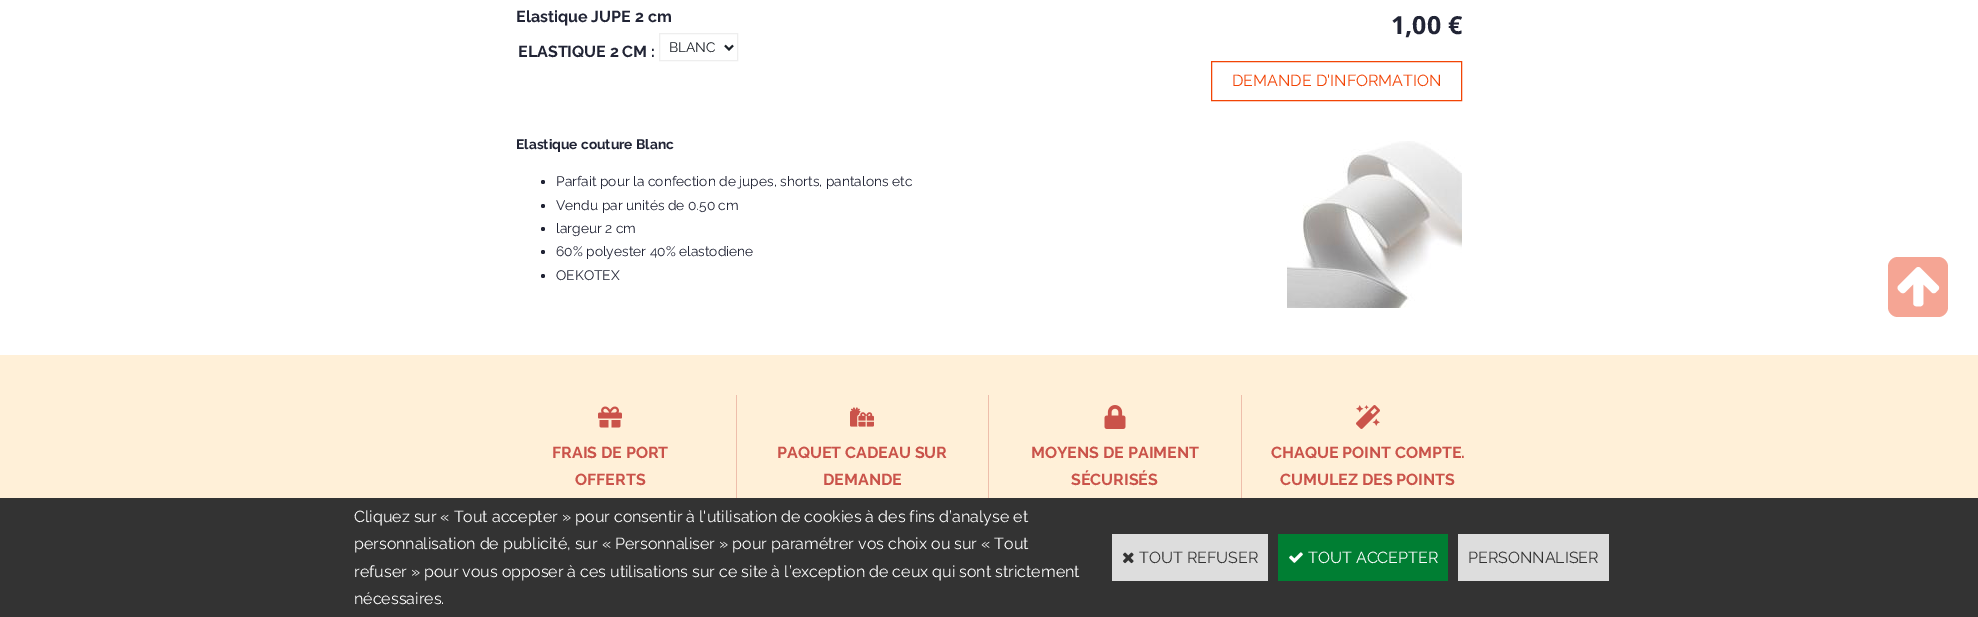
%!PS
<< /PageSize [1978 617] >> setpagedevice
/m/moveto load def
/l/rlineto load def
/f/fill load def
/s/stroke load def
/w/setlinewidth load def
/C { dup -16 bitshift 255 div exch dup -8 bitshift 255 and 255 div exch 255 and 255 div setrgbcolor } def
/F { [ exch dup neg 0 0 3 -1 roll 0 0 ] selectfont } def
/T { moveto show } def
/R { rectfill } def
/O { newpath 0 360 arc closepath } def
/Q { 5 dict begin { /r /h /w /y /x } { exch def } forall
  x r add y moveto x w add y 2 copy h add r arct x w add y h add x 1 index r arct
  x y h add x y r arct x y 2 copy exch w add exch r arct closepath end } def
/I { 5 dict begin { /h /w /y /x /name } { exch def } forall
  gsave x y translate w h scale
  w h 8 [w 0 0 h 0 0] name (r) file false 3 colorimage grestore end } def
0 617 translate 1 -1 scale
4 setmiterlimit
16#FFFFFF C
0 0 1978 617 R
/Raleway-Bold 16 F
16#212435 C
(Elastique JUPE 2 cm) 516 22 T
(ELASTIQUE 2 CM :) 518 57 T
16#EEEEEE C
659.5 33.5 78 27 rectstroke
16#1A1F26 C
2 w
725 45.5 m 4 4 l 4 -4 l s
/Raleway-Regular 13.75 F
(BLANC) 669 52 T
/OpenSans-Bold 25 F
16#212435 C
(1,00 €) 1391 34 T
16#F24405 C
1 w
1211.5 61.5 250 39 rectstroke
/Raleway-Regular 16 F
(DEMANDE D'INFORMATION) 1232 86 T
/Raleway-Bold 13.75 F
16#212435 C
(Elastique couture Blanc) 516 149 T
543 182 2 O f
/Raleway-Regular 13.75 F
(Parfait pour la confection de jupes, shorts, pantalons etc) 556 186 T
543 206 2 O f
(Vendu par unités de 0.50 cm) 556 210 T
543 229 2 O f
(largeur 2 cm) 556 233 T
543 252 2 O f
(60% polyester 40% elastodiene) 556 256 T
543 276 2 O f
(OEKOTEX) 556 280 T
(1.rgb) 1287 141 175 167 I
16#F5A594 C
1888 257 60 60 10 Q f
(2.rgb) 1897 267 43 40 I
16#FFF0D8 C
0 355 1978 143 R
16#EEBEAB C
736 395 1 103 R
(3.rgb) 598 406 24 22 I
/Raleway-Bold 16 F
16#CA534A C
(FRAIS DE PORT) 552 458 T
(OFFERTS) 575 485 T
16#EEBEAB C
988 395 1 103 R
(4.rgb) 850 407 24 20 I
16#CA534A C
(PAQUET CADEAU SUR) 777 458 T
(DEMANDE) 823 485 T
16#EEBEAB C
1241 395 1 103 R
(5.rgb) 1104 405 22 24 I
16#CA534A C
(MOYENS DE PAIMENT) 1031 458 T
(SÉCURISÉS) 1071 485 T
(6.rgb) 1356 405 24 24 I
(CHAQUE POINT COMPTE.) 1271 458 T
(CUMULEZ DES POINTS) 1280 485 T
16#333333 C
0 498 1978 119 R
/Raleway-Regular 16 F
16#FFFFFF C
(Cliquez sur « Tout accepter » pour consentir à l'utilisation de cookies à des fins d’analyse et) 354 522 T
(personnalisation de publicité, sur « Personnaliser » pour paramétrer vos choix ou sur « Tout) 354 549 T
(refuser » pour vous opposer à ces utilisations sur ce site à l’exception de ceux qui sont strictement) 354 577 T
(nécessaires.) 354 604 T
16#DDDDDD C
1112 534 156 47 R
(7.rgb) 1123 552 11 12 I
16#333333 C
(TOUT REFUSER) 1139 563 T
16#007E33 C
1278 534 170 47 R
(8.rgb) 1289 552 14 11 I
16#FFFFFF C
(TOUT ACCEPTER) 1308 563 T
16#DDDDDD C
1458 534 151 47 R
16#333333 C
(PERSONNALISER) 1468 563 T
showpage
